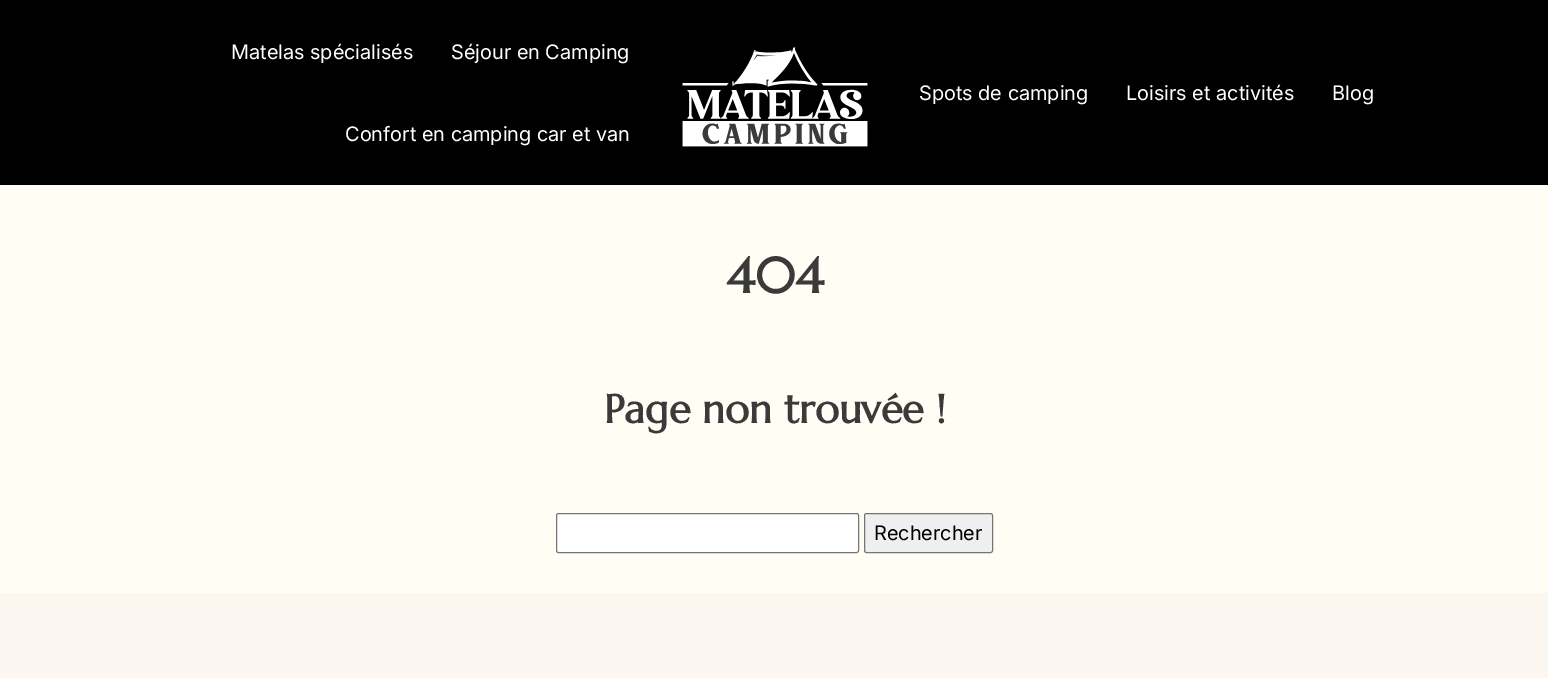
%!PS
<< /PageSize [1548 678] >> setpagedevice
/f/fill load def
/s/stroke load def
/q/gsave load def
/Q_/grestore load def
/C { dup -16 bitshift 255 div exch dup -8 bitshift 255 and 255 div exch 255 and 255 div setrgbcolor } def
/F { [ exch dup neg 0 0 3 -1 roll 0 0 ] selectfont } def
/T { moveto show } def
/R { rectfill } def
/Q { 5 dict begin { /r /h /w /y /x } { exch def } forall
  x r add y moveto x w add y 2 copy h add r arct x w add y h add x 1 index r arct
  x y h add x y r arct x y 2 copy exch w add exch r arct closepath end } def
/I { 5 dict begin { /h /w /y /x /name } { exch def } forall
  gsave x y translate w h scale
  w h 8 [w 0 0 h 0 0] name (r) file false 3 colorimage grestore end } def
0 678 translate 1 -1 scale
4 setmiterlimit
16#FFFDF4 C
0 0 1548 678 R
16#000000 C
0 0 1548 185 R
/Inter-Regular 20 F
16#FFFFFF C
(Matelas spécialisés) 231 59 T
(Séjour en Camping) 451 59 T
(Confort en camping car et van) 345 141 T
(1.rgb) 682 47 186 100 I
(Spots de camping) 919 100 T
(Loisirs et activités) 1126 100 T
(Blog) 1332 100 T
/Marcellus-Bold 50 F
16#3A3A3A C
(404) 726 293 T
/Marcellus-Bold 40 F
(Page non trouvée !) 604 423 T
16#FFFFFF C
556.5 513.5 302 39 2 Q q f Q_
16#767676 C
s
16#EFEFEF C
864.5 513.5 128 39 2 Q q f Q_
16#767676 C
s
/Inter-Regular 20 F
16#000000 C
(Rechercher) 874 540 T
16#FBF7F0 C
0 593 1548 85 R
showpage
